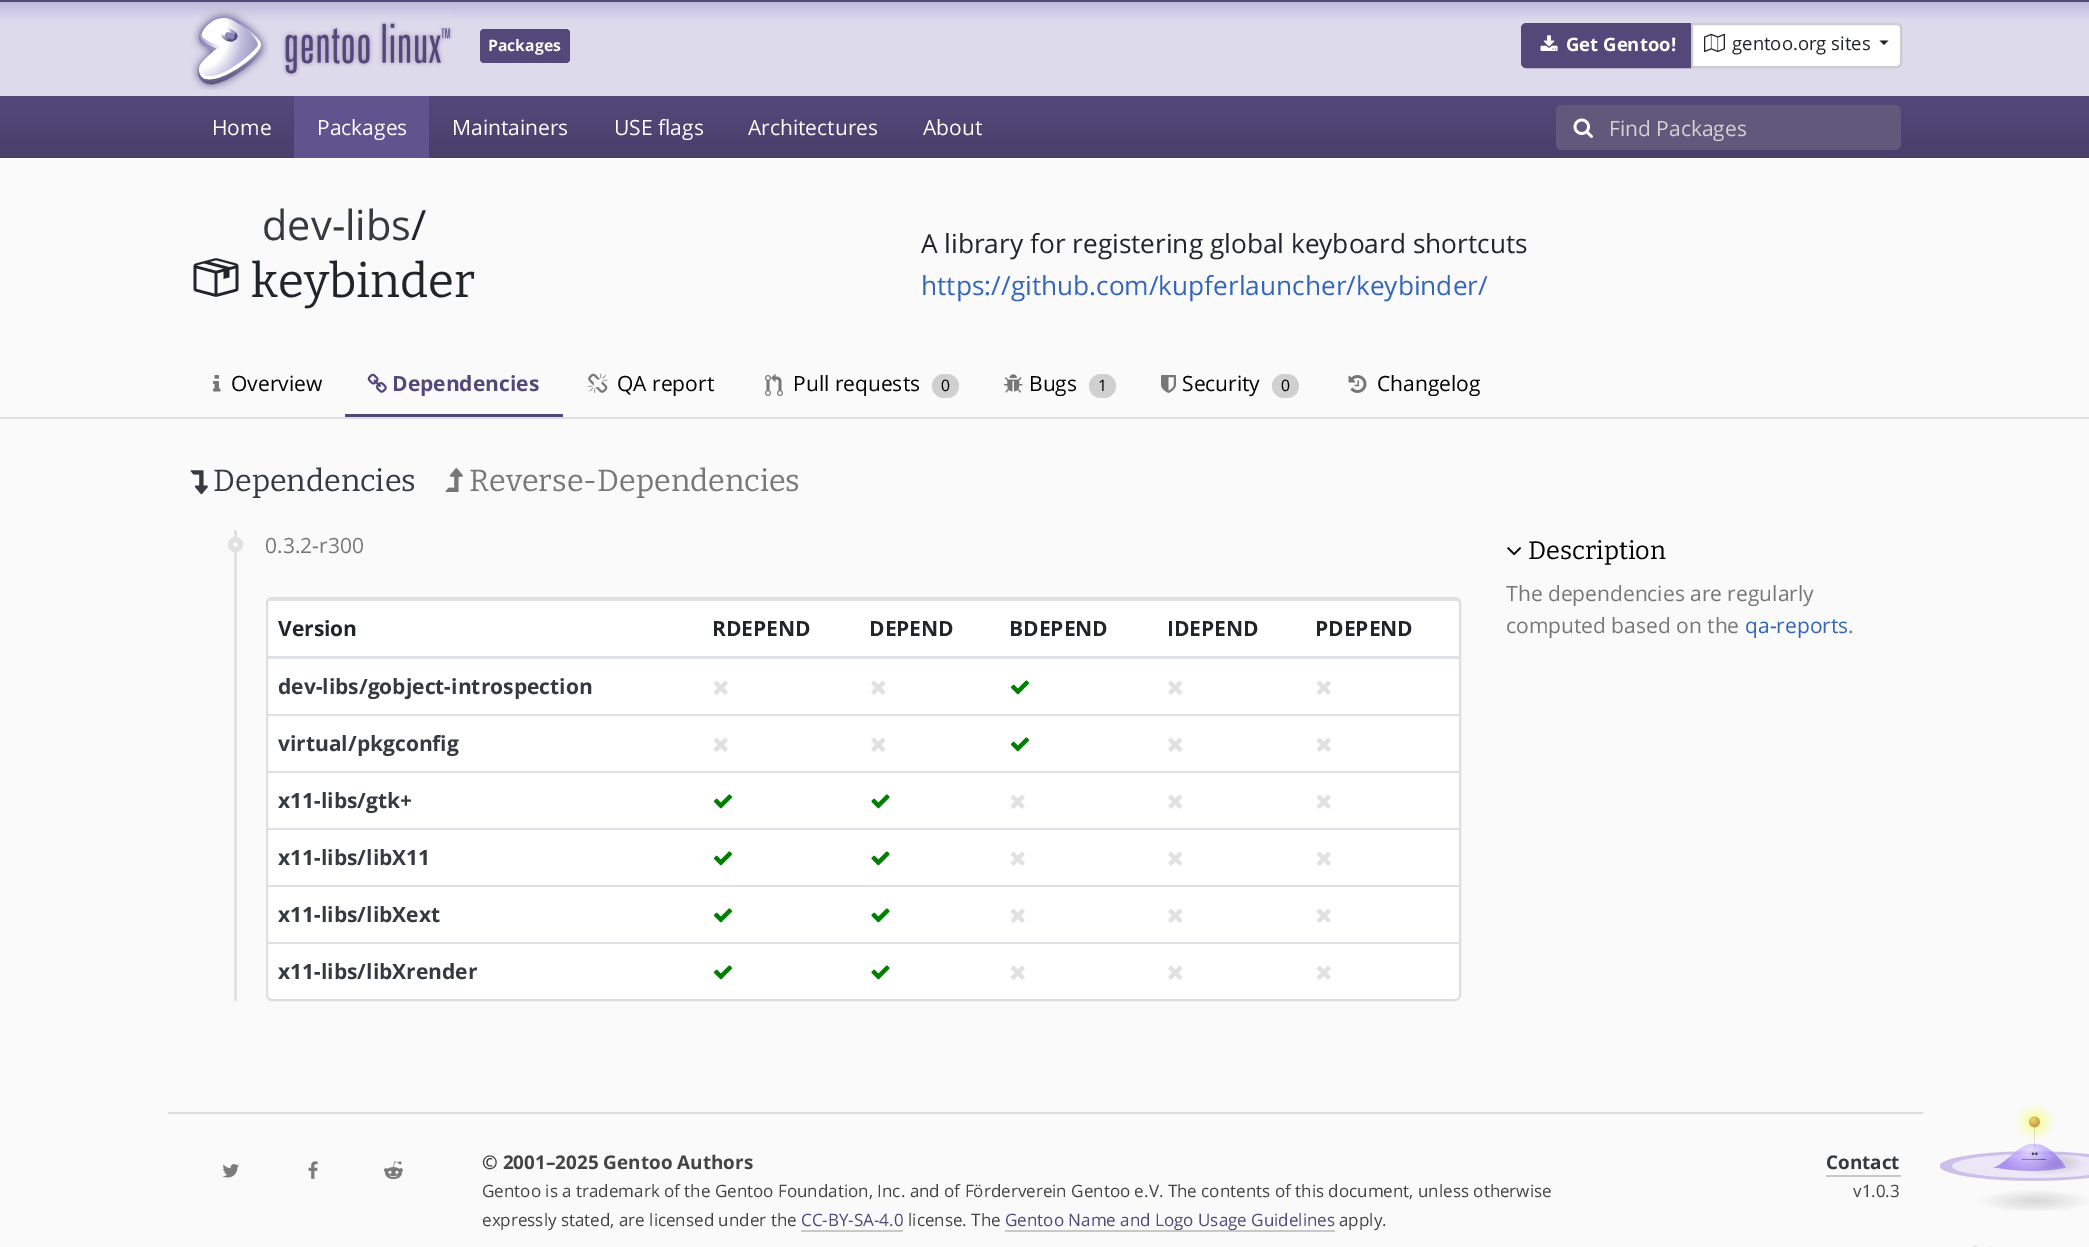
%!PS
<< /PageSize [2089 1247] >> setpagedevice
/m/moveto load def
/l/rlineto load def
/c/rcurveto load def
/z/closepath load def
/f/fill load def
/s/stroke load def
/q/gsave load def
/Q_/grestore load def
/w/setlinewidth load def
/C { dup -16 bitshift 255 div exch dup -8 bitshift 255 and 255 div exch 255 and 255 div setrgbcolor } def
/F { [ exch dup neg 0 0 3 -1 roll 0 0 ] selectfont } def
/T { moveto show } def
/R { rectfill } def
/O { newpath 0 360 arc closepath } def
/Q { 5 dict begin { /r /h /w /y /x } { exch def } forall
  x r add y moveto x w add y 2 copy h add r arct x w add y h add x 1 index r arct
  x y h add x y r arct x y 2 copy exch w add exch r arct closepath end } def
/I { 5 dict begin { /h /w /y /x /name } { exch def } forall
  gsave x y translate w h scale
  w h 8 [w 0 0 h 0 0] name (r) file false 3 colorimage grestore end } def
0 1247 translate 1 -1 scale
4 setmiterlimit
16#FAFAFA C
0 0 2089 1247 R
16#54487A C
0 0 2089 2 R
q 0 2 m 2089 0 l 0 94 l -2089 0 l z clip newpath
<< /ShadingType 2 /ColorSpace /DeviceRGB /Coords [1045 1.5 1045 96] /Extend [true true] /Function << /FunctionType 3 /Domain [0 1] /Functions [<< /FunctionType 2 /Domain [0 1] /C0 [.745 .722 .859] /C1 [.867 .855 .925] /N 1 >> << /FunctionType 2 /Domain [0 1] /C0 [.867 .855 .925] /C1 [.867 .855 .925] /N 1 >>] /Bounds [.2] /Encode [0 1 0 1] >> >> shfill Q_
(1.rgb) 191 9 262 81 I
480 29 90 34 4 Q f
/OpenSans-Bold 15.75 F
16#FFFFFF C
(Packages) 488 51 T
16#54487A C
1526 24 m 165 0 l 0 43 l -165 0 l -2 0 -4 -2 -4 -4 c 0 -35 l 0 -2 2 -4 4 -4 c z q f Q_
2 w
s
(2.rgb) 1540 35 18 16 I
/OpenSans-Bold 18.5 F
16#FFFFFF C
(Get Gentoo!) 1566 51 T
1692 24 m 205 0 l 2 0 4 2 4 4 c 0 35 l 0 2 -2 4 -4 4 c -205 0 l z q f Q_
16#CCCCCC C
s
(3.rgb) 1704 33 21 20 I
/OpenSans-Regular 18.5 F
16#212529 C
(gentoo.org sites) 1732 50 T
1879.5 40.5 m 9 0 l -4.5 4.5 l z f
q 0 96 m 2089 0 l 0 62 l -2089 0 l z clip newpath
<< /ShadingType 2 /ColorSpace /DeviceRGB /Coords [1045 96 1045 158] /Extend [true true] /Function << /FunctionType 2 /Domain [0 1] /C0 [.329 .282 .478] /C1 [.286 .247 .416] /N 1 >> >> shfill Q_
/OpenSans-Regular 21 F
16#FFFFFF C
(Home) 212 135 T
16#61538D C
294 96 135 62 R
16#FFFFFF C
(Packages) 317 135 T
(Maintainers) 452 135 T
(USE flags) 614 135 T
(Architectures) 748 135 T
(About) 923 135 T
16#61597B C
1562 105 m 49 0 l 0 45 l -49 0 l -3.5 0 -6 -2.5 -6 -6 c 0 -33 l 0 -3.5 2.5 -6 6 -6 c z f
(4.rgb) 1573 118 20 20 I
1610 105 m 285 0 l 3.5 0 6 2.5 6 6 c 0 33 l 0 3.5 -2.5 6 -6 6 c -285 0 l z f
16#D3D3D3 C
(Find Packages) 1609 136 T
/OpenSans-Regular 41.5 F
16#343A40 C
(dev-libs) 262 240 T
16#212529 C
(/) 411 240 T
(5.rgb) 193 258 46 39 I
/Bitter-Regular 47.25 F
(keybinder) 251 297 T
/OpenSans-Regular 26.25 F
(A library for registering global keyboard shortcuts) 921 253 T
16#3366BB C
(https://github.com/kupferlauncher/keybinder/) 921 295 T
(6.rgb) 213 375 8 17 I
/OpenSans-Regular 21 F
16#000000 C
(Overview) 231 391 T
16#54487A C
345 414 218 3 R
(7.rgb) 367 373 20 20 I
/OpenSans-Bold 21 F
(Dependencies) 392 391 T
(8.rgb) 588 373 20 20 I
/OpenSans-Regular 21 F
16#000000 C
(QA report) 617 391 T
(9.rgb) 765 373 18 23 I
(Pull requests) 793 391 T
16#D0D0D0 C
932 374 27 24 12 Q f
/OpenSans-Regular 15.75 F
16#000000 C
(0) 941 391 T
(10.rgb) 1003 374 20 19 I
/OpenSans-Regular 21 F
(Bugs) 1029 391 T
16#D0D0D0 C
1089 374 27 24 12 Q f
/OpenSans-Regular 15.75 F
16#000000 C
(1) 1098 391 T
(11.rgb) 1161 375 15 18 I
/OpenSans-Regular 21 F
(Security) 1182 391 T
16#D0D0D0 C
1272 374 27 24 12 Q f
/OpenSans-Regular 15.75 F
16#000000 C
(0) 1281 391 T
(12.rgb) 1348 375 19 18 I
/OpenSans-Regular 21 F
(Changelog) 1377 391 T
16#DDDDDD C
0 417 2089 2 R
(13.rgb) 190 470 18 25 I
/Bitter-Regular 30.5 F
16#343A40 C
(Dependencies) 213 491 T
(14.rgb) 445 468 18 24 I
16#777777 C
(Reverse-Dependencies) 469 491 T
16#E1E1E1 C
234 530 3 471 R
16#FFFFFF C
235.5 544.5 5 O q f Q_
16#E1E1E1 C
5 w
s
/OpenSans-Regular 21 F
16#777777 C
(0.3.2-r300) 265 553 T
16#FFFFFF C
267 598 1193 402 5 Q q f Q_
16#DFDFDF C
2 w
s
/OpenSans-Bold 21 F
16#212529 C
(Version) 278 636 T
(RDEPEND) 712 636 T
(DEPEND) 869 636 T
(BDEPEND) 1009 636 T
(IDEPEND) 1167 636 T
16#DEE2E6 C
267 599 1193 2 R
267 656 1193 3 R
16#212529 C
(PDEPEND) 1315 636 T
16#343A40 C
(dev-libs/gobject-introspection) 278 694 T
(15.rgb) 713 680 15 15 I
(16.rgb) 871 680 15 15 I
(17.rgb) 1010 680 20 15 I
(16.rgb) 1168 680 15 15 I
(15.rgb) 1316 680 15 15 I
16#DEE2E6 C
267 714 1193 2 R
(15.rgb) 1316 737 15 15 I
16#343A40 C
(virtual/pkgconfig) 278 751 T
(15.rgb) 713 737 15 15 I
(16.rgb) 871 737 15 15 I
(17.rgb) 1010 737 20 15 I
(16.rgb) 1168 737 15 15 I
16#DEE2E6 C
267 771 1193 2 R
(15.rgb) 1316 794 15 15 I
16#343A40 C
(x11-libs/gtk+) 278 808 T
(17.rgb) 713 794 20 15 I
(18.rgb) 871 794 19 15 I
(15.rgb) 1010 794 15 15 I
(16.rgb) 1168 794 15 15 I
16#DEE2E6 C
267 828 1193 2 R
(15.rgb) 1316 851 15 15 I
16#343A40 C
(x11-libs/libX11) 278 865 T
(17.rgb) 713 851 20 15 I
(18.rgb) 871 851 19 15 I
(15.rgb) 1010 851 15 15 I
(16.rgb) 1168 851 15 15 I
16#DEE2E6 C
267 885 1193 2 R
(15.rgb) 1316 908 15 15 I
16#343A40 C
(x11-libs/libXext) 278 922 T
(17.rgb) 713 908 20 15 I
(18.rgb) 871 908 19 15 I
(15.rgb) 1010 908 15 15 I
(16.rgb) 1168 908 15 15 I
16#DEE2E6 C
267 942 1193 2 R
(15.rgb) 1316 965 15 15 I
16#343A40 C
(x11-libs/libXrender) 278 979 T
(17.rgb) 713 965 20 15 I
(18.rgb) 871 965 19 15 I
(15.rgb) 1010 965 15 15 I
(16.rgb) 1168 965 15 15 I
(19.rgb) 1507 547 15 9 I
/Bitter-Regular 25.25 F
16#000000 C
(Description) 1528 559 T
/OpenSans-Regular 21 F
16#777777 C
(The dependencies are regularly) 1506 601 T
(computed based on the) 1506 633 T
16#3366BB C
(qa-reports) 1745 633 T
16#777777 C
(.) 1848 633 T
(20.rgb) 1940 1104 149 107 I
(21.rgb) 1973 1245 19 2 I
16#DDDDDD C
168 1112 1755 2 R
(22.rgb) 222 1164 17 14 I
(23.rgb) 308 1161 10 18 I
(24.rgb) 384 1161 19 19 I
/OpenSans-Bold 18.9 F
16#444444 C
(© 2001–2025 Gentoo Authors) 482 1169 T
/OpenSans-Regular 17 F
(Gentoo is a trademark of the Gentoo Foundation, Inc. and of Förderverein Gentoo e.V. The contents of this document, unless otherwise) 482 1197 T
(expressly stated, are licensed under the) 482 1226 T
16#C8C8C8 C
801 1230 102 2 R
16#54487A C
(CC-BY-SA-4.0) 801 1226 T
16#444444 C
(license. The) 908 1226 T
16#C8C8C8 C
1005 1230 330 2 R
16#54487A C
(Gentoo Name and Logo Usage Guidelines) 1005 1226 T
16#444444 C
(apply.) 1339 1226 T
/OpenSans-Bold 18.9 F
16#343A40 C
(Contact) 1826 1169 T
16#C8C8C8 C
1826 1175 75 2 R
/OpenSans-Regular 17 F
16#444444 C
(v1.0.3) 1853 1197 T
showpage
